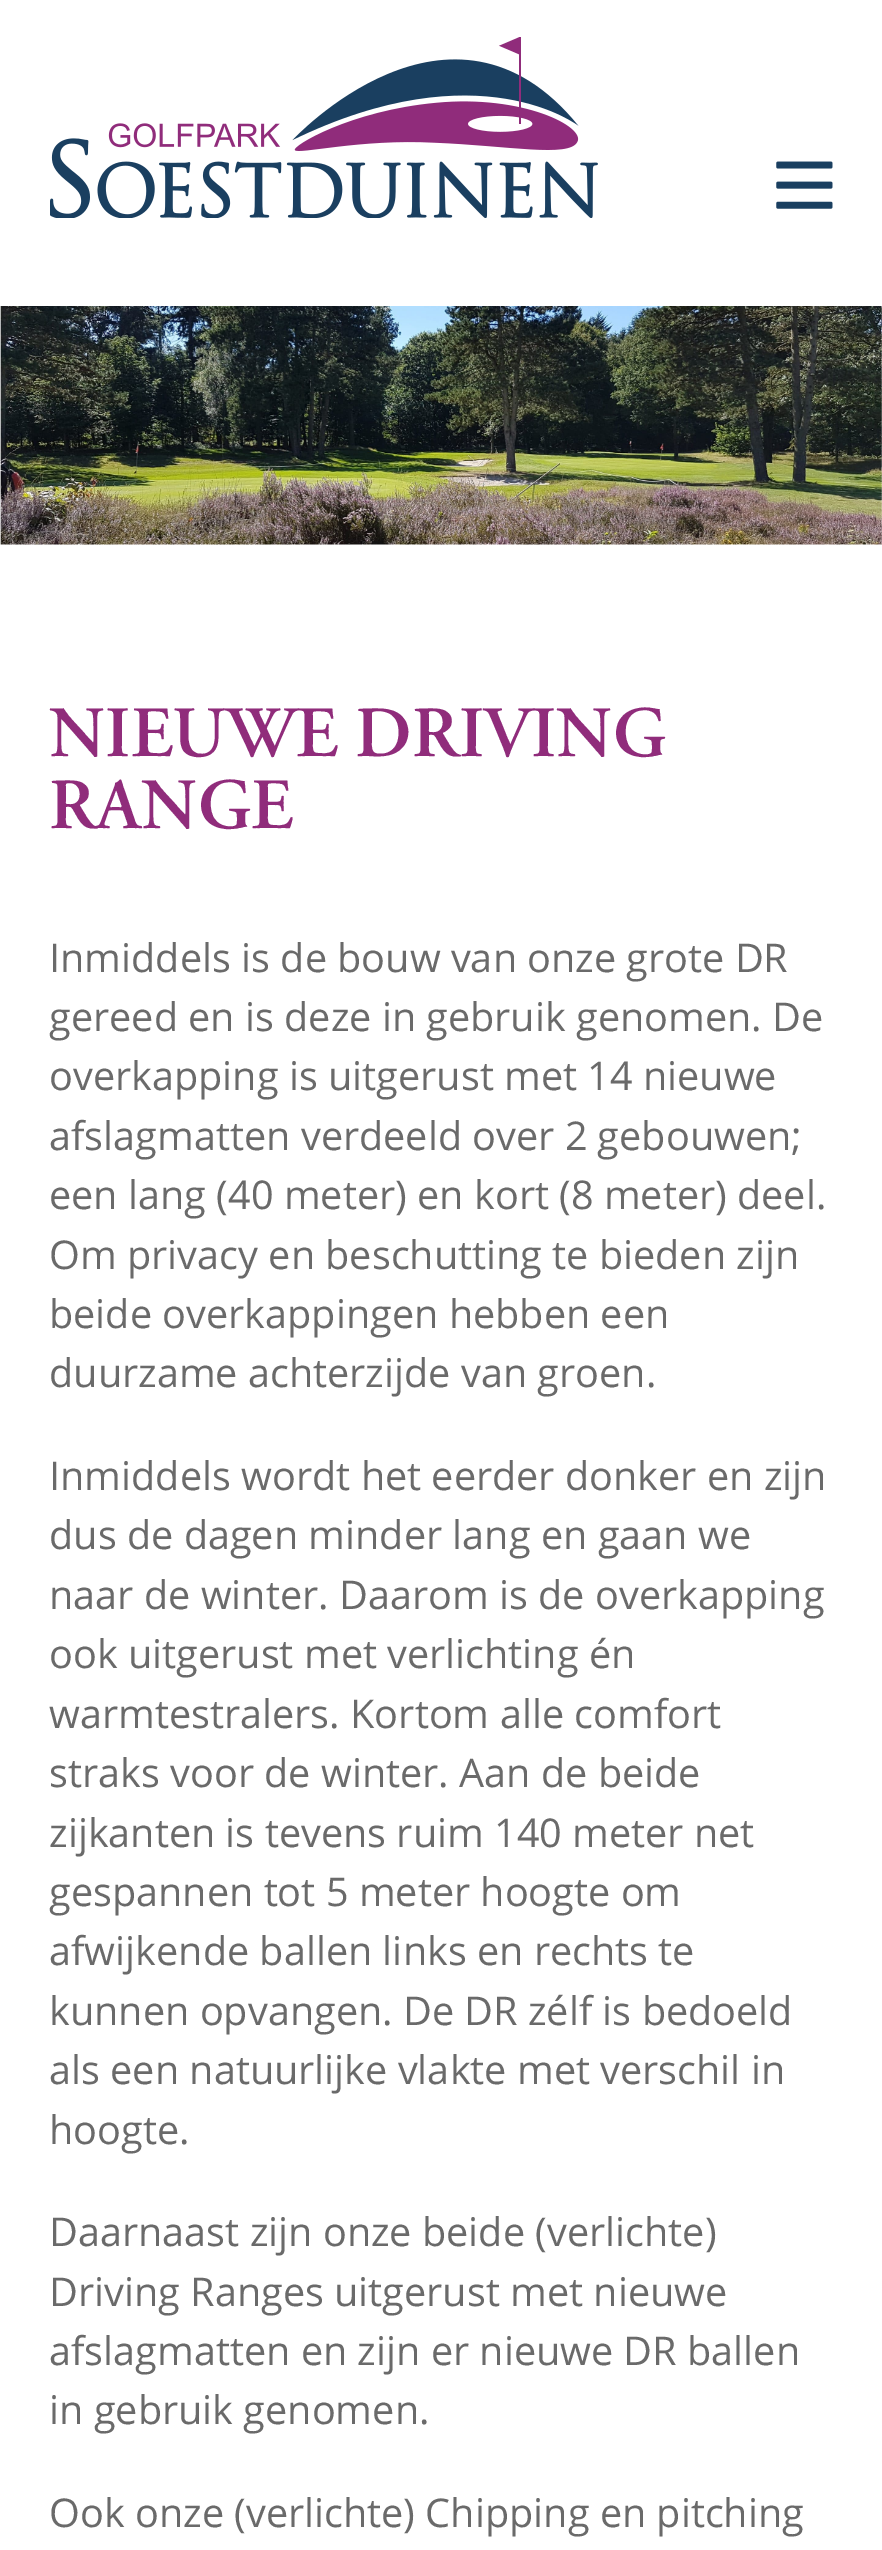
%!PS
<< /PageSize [882 2550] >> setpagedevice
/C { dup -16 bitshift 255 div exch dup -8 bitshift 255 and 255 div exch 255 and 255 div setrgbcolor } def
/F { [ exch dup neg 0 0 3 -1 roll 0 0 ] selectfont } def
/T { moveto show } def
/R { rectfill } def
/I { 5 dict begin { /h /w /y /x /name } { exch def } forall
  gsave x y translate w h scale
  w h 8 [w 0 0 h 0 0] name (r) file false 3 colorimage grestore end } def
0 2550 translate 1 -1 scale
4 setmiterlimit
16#FFFFFF C
0 0 882 2550 R
(1.rgb) 50 37 548 181 I
(2.rgb) 776 161 57 48 I
(3.rgb) 0 306 882 239 I
/AdobeGaramond-SemiBold 72 F
16#902C7B C
(NIEUWE DRIVING) 49 756 T
(RANGE) 49 828 T
/OpenSans-Regular 39.6 F
16#6A6A6A C
(Inmiddels is de bouw van onze grote DR) 49 972 T
(gereed en is deze in gebruik genomen. De) 49 1031 T
(overkapping is uitgerust met 14 nieuwe) 49 1090 T
(afslagmatten verdeeld over 2 gebouwen;) 49 1150 T
(een lang \(40 meter\) en kort \(8 meter\) deel.) 49 1209 T
(Om privacy en beschutting te bieden zijn) 49 1269 T
(beide overkappingen hebben een) 49 1328 T
(duurzame achterzijde van groen.) 49 1387 T
(Inmiddels wordt het eerder donker en zijn) 49 1490 T
(dus de dagen minder lang en gaan we) 49 1549 T
(naar de winter. Daarom is de overkapping) 49 1609 T
(ook uitgerust met verlichting én) 49 1668 T
(warmtestralers. Kortom alle comfort) 49 1728 T
(straks voor de winter. Aan de beide) 49 1787 T
(zijkanten is tevens ruim 140 meter net) 49 1847 T
(gespannen tot 5 meter hoogte om) 49 1906 T
(afwijkende ballen links en rechts te) 49 1965 T
(kunnen opvangen. De DR zélf is bedoeld) 49 2025 T
(als een natuurlijke vlakte met verschil in) 49 2084 T
(hoogte.) 49 2144 T
(Daarnaast zijn onze beide \(verlichte\)) 49 2246 T
(Driving Ranges uitgerust met nieuwe) 49 2306 T
(afslagmatten en zijn er nieuwe DR ballen) 49 2365 T
(in gebruik genomen.) 49 2424 T
(Ook onze \(verlichte\) Chipping en pitching) 49 2527 T
showpage
